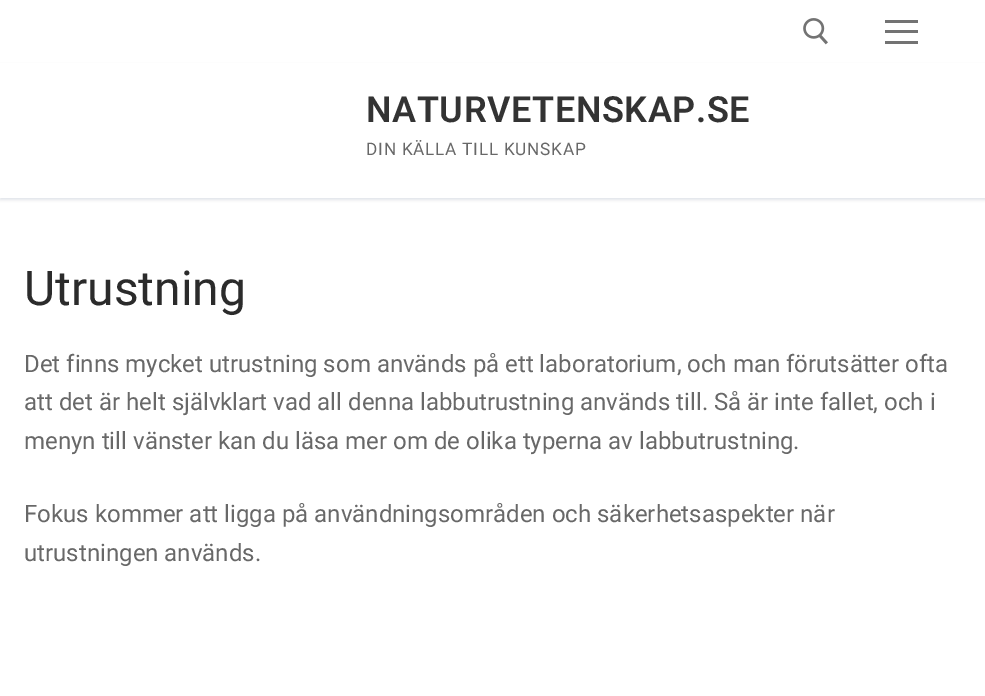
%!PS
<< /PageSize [985 696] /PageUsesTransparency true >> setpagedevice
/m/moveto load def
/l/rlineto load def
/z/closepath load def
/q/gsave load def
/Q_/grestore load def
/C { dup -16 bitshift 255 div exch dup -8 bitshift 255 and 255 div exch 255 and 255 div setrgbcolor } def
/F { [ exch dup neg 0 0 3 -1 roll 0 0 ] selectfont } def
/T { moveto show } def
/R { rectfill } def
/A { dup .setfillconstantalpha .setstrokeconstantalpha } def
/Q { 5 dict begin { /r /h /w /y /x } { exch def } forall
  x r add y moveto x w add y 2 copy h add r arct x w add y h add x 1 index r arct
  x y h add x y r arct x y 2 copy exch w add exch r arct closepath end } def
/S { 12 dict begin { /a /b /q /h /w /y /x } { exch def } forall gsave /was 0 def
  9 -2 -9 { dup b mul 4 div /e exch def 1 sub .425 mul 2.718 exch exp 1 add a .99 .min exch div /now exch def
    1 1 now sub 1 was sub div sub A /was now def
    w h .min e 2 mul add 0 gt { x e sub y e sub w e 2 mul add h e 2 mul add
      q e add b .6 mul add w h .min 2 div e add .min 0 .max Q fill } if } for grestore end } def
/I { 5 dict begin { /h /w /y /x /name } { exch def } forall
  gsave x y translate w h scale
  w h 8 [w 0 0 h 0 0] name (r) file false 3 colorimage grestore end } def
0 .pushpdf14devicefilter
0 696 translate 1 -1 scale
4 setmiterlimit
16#FFFFFF C
0 0 985 696 R
(1.rgb) 803 18 25 27 I
16#737373 C
885 30 33 3 R
885 20 33 3 R
885 41 33 3 R
q
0 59 m 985 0 l 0 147 l -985 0 l z 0 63 m 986 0 l 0 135 l -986 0 l z eoclip newpath
16#E1E5EA C
0 65 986 135 0 1.5 1 S
Q_
/Roboto-SemiBold 36 F
16#333333 C
366 122 m .6 0 (NATURVETENSKAP.SE) ashow
/Roboto-Regular 17.25 F
16#686868 C
366 155 m .75 0 (DIN KÄLLA TILL KUNSKAP) ashow
/Roboto-Regular 48 F
16#2B2B2B C
(Utrustning) 24 305 T
/Roboto-Regular 24 F
16#686868 C
(Det finns mycket utrustning som används på ett laboratorium, och man förutsätter ofta) 24 372 T
(att det är helt självklart vad all denna labbutrustning används till. Så är inte fallet, och i) 24 410 T
(menyn till vänster kan du läsa mer om de olika typerna av labbutrustning.) 24 449 T
(Fokus kommer att ligga på användningsområden och säkerhetsaspekter när) 24 522 T
(utrustningen används.) 24 561 T
.poppdf14devicefilter showpage
